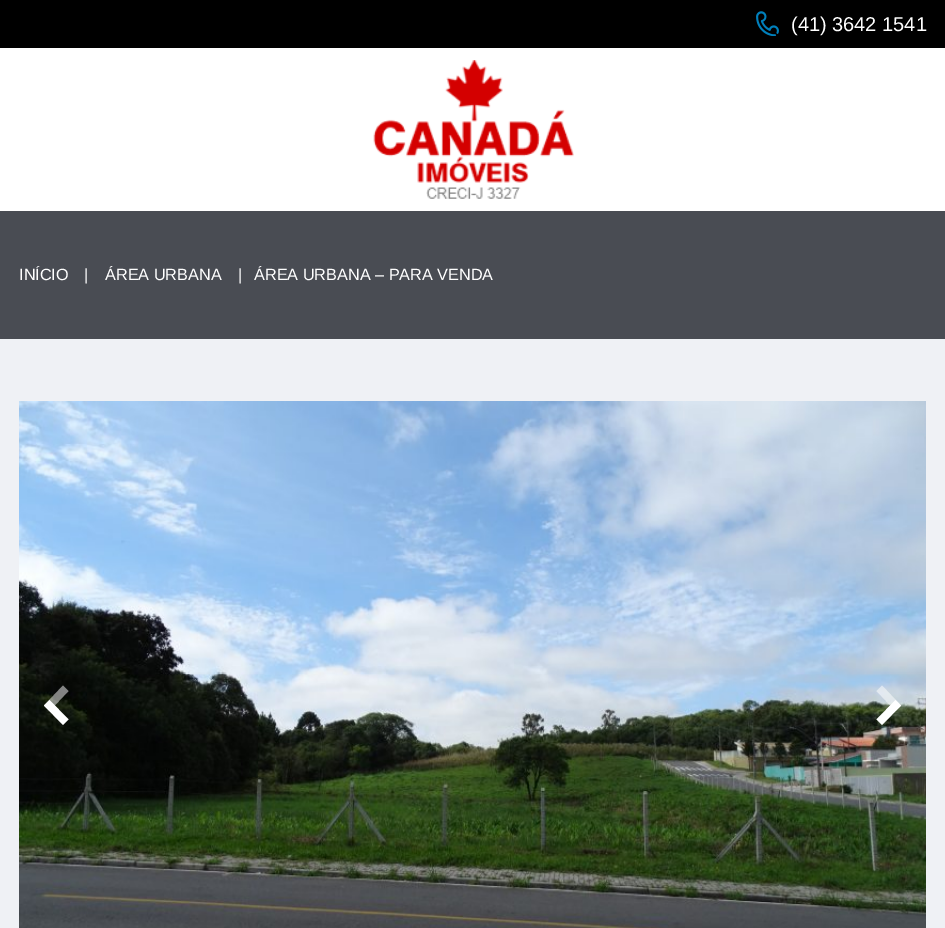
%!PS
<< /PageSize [945 928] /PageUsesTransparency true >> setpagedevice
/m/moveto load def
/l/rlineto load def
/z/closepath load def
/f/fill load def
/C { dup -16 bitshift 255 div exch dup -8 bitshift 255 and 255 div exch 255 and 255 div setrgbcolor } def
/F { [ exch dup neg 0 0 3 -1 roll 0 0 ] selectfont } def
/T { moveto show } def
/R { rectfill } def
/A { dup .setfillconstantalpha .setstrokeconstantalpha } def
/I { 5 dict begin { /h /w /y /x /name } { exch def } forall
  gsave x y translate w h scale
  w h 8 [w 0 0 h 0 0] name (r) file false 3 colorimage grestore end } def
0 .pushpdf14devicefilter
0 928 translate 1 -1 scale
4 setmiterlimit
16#FFFFFF C
0 0 945 928 R
16#000000 C
0 0 945 48 R
(1.rgb) 756 11 23 25 I
/LiberationSans-Regular 20 F
16#FFFFFF C
(\(41\) 3642 1541) 791 31 T
(2.rgb) 373 60 201 139 I
16#494C53 C
0 211 945 128 R
/LiberationSans-Regular 16.25 F
16#FFFFFF C
(INÍCIO) 19 280 T
(|) 84 280 T
(ÁREA URBANA) 105 280 T
(|) 238 280 T
(ÁREA URBANA – PARA VENDA) 254 280 T
16#EFF1F5 C
0 339 945 589 R
(3.rgb) 19 401 907 527 I
0.5 A
16#FFFFFF C
68.5 691 m -5.5 -5.5 l -19 20 l 5.5 5.5 l z f
1 A
44 705.5 m 5.5 -5.5 l 19 19.5 l -5.5 5.5 l z f
876.5 719.5 m 5.5 5.5 l 19 -19.5 l -5.5 -5.5 l z eofill
0.5 A
901 705.5 m -5.5 5.5 l -19 -20 l 5.5 -5.5 l z eofill
.poppdf14devicefilter showpage
